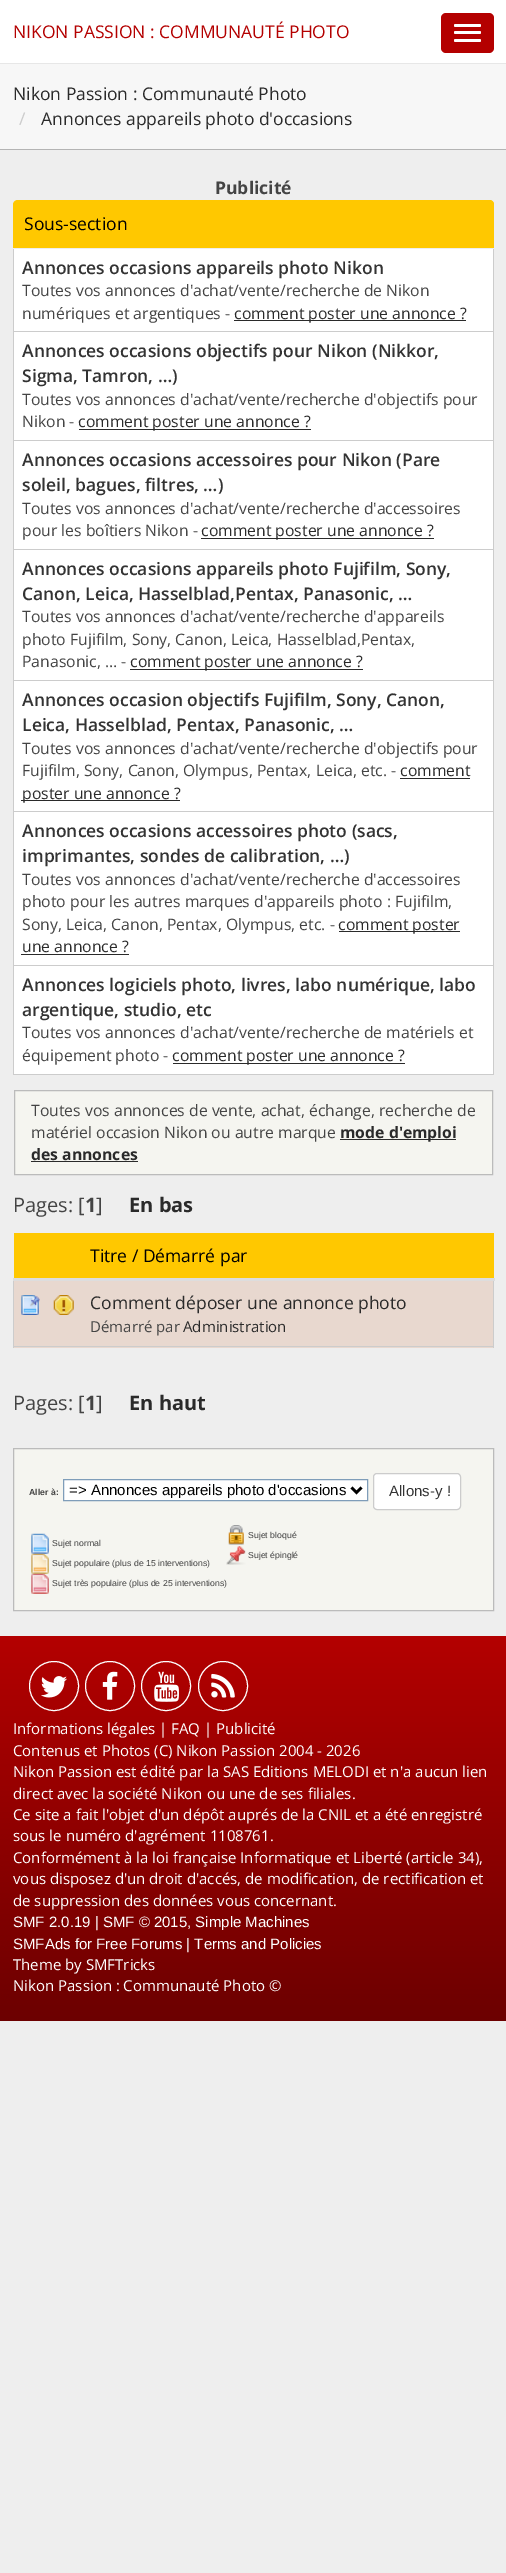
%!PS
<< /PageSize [506 2573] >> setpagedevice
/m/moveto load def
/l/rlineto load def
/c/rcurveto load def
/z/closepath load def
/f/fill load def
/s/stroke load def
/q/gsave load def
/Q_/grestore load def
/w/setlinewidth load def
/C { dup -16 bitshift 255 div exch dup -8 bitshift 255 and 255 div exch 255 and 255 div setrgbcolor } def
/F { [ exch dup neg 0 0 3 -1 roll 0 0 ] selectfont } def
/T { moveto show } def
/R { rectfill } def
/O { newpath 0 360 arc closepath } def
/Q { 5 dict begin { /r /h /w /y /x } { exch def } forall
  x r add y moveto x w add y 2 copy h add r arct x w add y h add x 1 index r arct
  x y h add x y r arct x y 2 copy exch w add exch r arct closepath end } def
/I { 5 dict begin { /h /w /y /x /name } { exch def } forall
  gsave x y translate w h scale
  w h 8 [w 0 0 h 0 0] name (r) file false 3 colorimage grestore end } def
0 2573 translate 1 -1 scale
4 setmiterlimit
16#EEEEEE C
0 0 506 2573 R
16#FFFFFF C
0 0 506 63 R
/OpenSans-Regular 17.5 F
16#B40000 C
(NIKON PASSION : COMMUNAUTÉ PHOTO) 13 38 T
441 13 53 40 5 Q f
16#FFFFFF C
454 24 27 3 1.5 Q f
454 31 27 3 1.5 Q f
454 39 27 3 1.5 Q f
16#E7E7E7 C
0 63 506 1 R
16#F7F7F7 C
0 64 506 85 R
16#B4B4B4 C
0 149 506 1 R
16#2A2A2A C
(Nikon Passion : Communauté Photo) 13 100 T
16#CCCCCC C
(/) 19 125 T
16#2A2A2A C
(Annonces appareils photo d'occasions) 41 125 T
/OpenSans-Bold 17.5 F
16#444444 C
(Publicité) 215 194 T
16#FFC800 C
18 200 m 471 0 l 3 0 5 2 5 5 c 0 43 l -481 0 l 0 -43 l 0 -3 2 -5 5 -5 c z f
24 200 m 465 0 l 3 0 5 2 5 5 c 0 43 l -470 0 l z f
/OpenSans-Regular 17.5 F
16#000000 C
(Sous-section) 24 230 T
16#FFFFFF C
14 249 479 82 R
16#CCCCCC C
493 249 1 826 R
13 1074 481 1 R
13 965 1 110 R
13 965 481 1 R
13 811 1 155 R
13 811 481 1 R
13 680 1 133 R
13 680 481 1 R
13 549 1 132 R
13 549 481 1 R
13 440 1 110 R
13 440 481 1 R
13 331 1 110 R
13 331 481 1 R
13 249 1 84 R
/OpenSans-SemiBold 17.5 F
16#333333 C
(Annonces occasions appareils photo Nikon) 22 274 T
/OpenSans-Regular 15.75 F
16#444444 C
(Toutes vos annonces d'achat/vente/recherche de Nikon) 22 296 T
(numériques et argentiques -) 22 319 T
16#2A2A2A C
234 320 232 1 R
(comment poster une annonce ?) 234 319 T
16#FFFFFF C
14 332 479 108 R
/OpenSans-SemiBold 17.5 F
16#333333 C
(Annonces occasions objectifs pour Nikon \(Nikkor,) 22 357 T
(Sigma, Tamron, …\)) 22 382 T
/OpenSans-Regular 15.75 F
16#444444 C
(Toutes vos annonces d'achat/vente/recherche d'objectifs pour) 22 405 T
(Nikon -) 22 427 T
16#2A2A2A C
79 429 232 1 R
(comment poster une annonce ?) 78 427 T
16#FFFFFF C
14 441 479 108 R
/OpenSans-SemiBold 17.5 F
16#333333 C
(Annonces occasions accessoires pour Nikon \(Pare) 22 466 T
(soleil, bagues, filtres, …\)) 22 491 T
/OpenSans-Regular 15.75 F
16#444444 C
(Toutes vos annonces d'achat/vente/recherche d'accessoires) 22 514 T
(pour les boîtiers Nikon -) 22 536 T
16#2A2A2A C
201 538 233 1 R
(comment poster une annonce ?) 201 536 T
16#FFFFFF C
14 550 479 130 R
/OpenSans-SemiBold 17.5 F
16#333333 C
(Annonces occasions appareils photo Fujifilm, Sony,) 22 575 T
(Canon, Leica, Hasselblad,Pentax, Panasonic, …) 22 600 T
/OpenSans-Regular 15.75 F
16#444444 C
(Toutes vos annonces d'achat/vente/recherche d'appareils) 22 622 T
(photo Fujifilm, Sony, Canon, Leica, Hasselblad,Pentax,) 22 645 T
(Panasonic, … -) 22 667 T
16#2A2A2A C
130 669 233 1 R
(comment poster une annonce ?) 130 667 T
16#FFFFFF C
14 681 479 130 R
/OpenSans-SemiBold 17.5 F
16#333333 C
(Annonces occasion objectifs Fujifilm, Sony, Canon,) 22 706 T
(Leica, Hasselblad, Pentax, Panasonic, …) 22 731 T
/OpenSans-Regular 15.75 F
16#444444 C
(Toutes vos annonces d'achat/vente/recherche d'objectifs pour) 22 754 T
(Fujifilm, Sony, Canon, Olympus, Pentax, Leica, etc. -) 22 776 T
16#2A2A2A C
(comment) 400 776 T
400 778 70 1 R
21 800 159 1 R
(poster une annonce ?) 22 799 T
16#FFFFFF C
14 812 479 153 R
/OpenSans-SemiBold 17.5 F
16#333333 C
(Annonces occasions accessoires photo \(sacs,) 22 837 T
(imprimantes, sondes de calibration, …\)) 22 862 T
/OpenSans-Regular 15.75 F
16#444444 C
(Toutes vos annonces d'achat/vente/recherche d'accessoires) 22 885 T
(photo pour les autres marques d'appareils photo : Fujifilm,) 22 907 T
(Sony, Leica, Canon, Pentax, Olympus, etc. -) 22 930 T
16#2A2A2A C
339 931 121 1 R
(comment poster) 338 930 T
(une annonce ?) 22 952 T
21 954 108 1 R
16#FFFFFF C
14 966 479 108 R
/OpenSans-SemiBold 17.5 F
16#333333 C
(Annonces logiciels photo, livres, labo numérique, labo) 22 991 T
(argentique, studio, etc) 22 1016 T
/OpenSans-Regular 15.75 F
16#444444 C
(Toutes vos annonces d'achat/vente/recherche de matériels et) 22 1038 T
(équipement photo -) 22 1061 T
16#2A2A2A C
173 1063 232 1 R
(comment poster une annonce ?) 172 1061 T
16#F5F5F0 C
14.5 1090.5 m 478 0 l 0 84 l -478 0 l z q f Q_
16#BBBBBB C
s
16#444444 C
(Toutes vos annonces de vente, achat, échange, recherche de) 31 1116 T
(matériel occasion Nikon ou autre marque) 31 1138 T
16#2A2A2A C
340 1139 116 1 R
/OpenSans-Bold 15.75 F
(mode d'emploi) 340 1138 T
(des annonces) 31 1160 T
31 1161 107 1 R
/OpenSans-Regular 20 F
16#444444 C
(Pages: [) 13 1212 T
/OpenSans-Bold 20 F
(1) 85 1212 T
/OpenSans-Regular 20 F
(]) 96 1212 T
/OpenSans-Bold 20 F
16#2A2A2A C
(En bas) 129 1212 T
16#FFC800 C
14 1233 480 45 R
16#E8D8CF C
14 1281 479 67 R
16#CCCCCC C
493 1279 1 69 R
13 1346 481 1 R
13 1279 1 69 R
16#DDDDDD C
13 1278 482 3 R
/OpenSans-Regular 17.5 F
16#000000 C
(Titre / Démarré par) 90 1262 T
(1.rgb) 21 1295 19 20 I
(2.rgb) 53 1295 21 20 I
16#2A2A2A C
(Comment déposer une annonce photo) 90 1309 T
/OpenSans-Regular 15 F
16#444444 C
(Démarré par) 90 1332 T
16#2A2A2A C
(Administration) 183 1332 T
/OpenSans-Regular 20 F
16#444444 C
(Pages: [) 13 1410 T
/OpenSans-Bold 20 F
(1) 85 1410 T
/OpenSans-Regular 20 F
(]) 96 1410 T
/OpenSans-Bold 20 F
16#2A2A2A C
(En haut) 129 1410 T
16#F5F5F0 C
13.5 1448.5 m 480 0 l 0 162 l -480 0 l z q f Q_
16#BBBBBB C
s
/LiberationSans-Bold 8.7 F
16#444444 C
(Aller à:) 29 1495 T
16#FFFFFF C
63.5 1479.5 m 304 0 l 0 21 l -304 0 l z q f Q_
16#7F9DB9 C
s
16#000000 C
2.5 w
351.5 1487.5 m 5 5 l 5 -5 l s
/LiberationSans-Regular 15 F
(=> Annonces appareils photo d'occasions) 69 1495 T
16#FFFFFF C
373.5 1473.5 87 36 3.5 Q q f Q_
16#CCCCCC C
1 w
s
16#333333 C
(Allons-y !) 389 1496 T
(3.rgb) 31 1533 18 21 I
/LiberationSans-Regular 8.7 F
16#444444 C
(Sujet normal) 52 1546 T
(4.rgb) 31 1553 18 21 I
(Sujet populaire \(plus de 15 interventions\)) 52 1566 T
(5.rgb) 31 1573 18 21 I
(Sujet très populaire \(plus de 25 interventions\)) 52 1586 T
(6.rgb) 228 1525 16 20 I
(Sujet bloqué) 248 1538 T
(7.rgb) 226 1546 20 19 I
(Sujet épinglé) 248 1558 T
q 0 1636 m 506 0 l 0 385 l -506 0 l z clip newpath
<< /ShadingType 2 /ColorSpace /DeviceRGB /Coords [253 1636 253 2021] /Extend [true true] /Function << /FunctionType 2 /Domain [0 1] /C0 [.706 0 0] /C1 [.424 0 0] /N 1 >> >> shfill Q_
16#FFFFFF C
54 1686 24.5 O s
(8.rgb) 41 1676 26 22 I
110 1686 24.5 O s
(9.rgb) 102 1671 16 29 I
166 1686 24.5 O s
(10.rgb) 154 1671 25 31 I
223 1686 24.5 O s
(11.rgb) 211 1673 24 25 I
/OpenSans-Regular 15 F
(Informations légales | FAQ | Publicité) 13 1734 T
(Contenus et Photos \(C\) Nikon Passion 2004 - 2026) 13 1756 T
(Nikon Passion est édité par la SAS Editions MELODI et n'a aucun lien) 13 1777 T
(direct avec la société Nikon ou une de ses filiales.) 13 1799 T
(Ce site a fait l'objet d'un dépôt auprés de la CNIL et a été enregistré) 13 1820 T
(sous le numéro d'agrément 1108761.) 13 1841 T
(Conformément à la loi française Informatique et Liberté \(article 34\),) 13 1863 T
(vous disposez d'un droit d'accés, de modification, de rectification et) 13 1884 T
(de suppression des données vous concernant.) 13 1906 T
/LiberationSans-Regular 15 F
(SMF 2.0.19 | SMF © 2015, Simple Machines) 13 1927 T
(SMFAds for Free Forums | Terms and Policies) 13 1949 T
/OpenSans-Regular 15 F
(Theme by SMFTricks) 13 1970 T
(Nikon Passion : Communauté Photo ©) 13 1991 T
showpage
